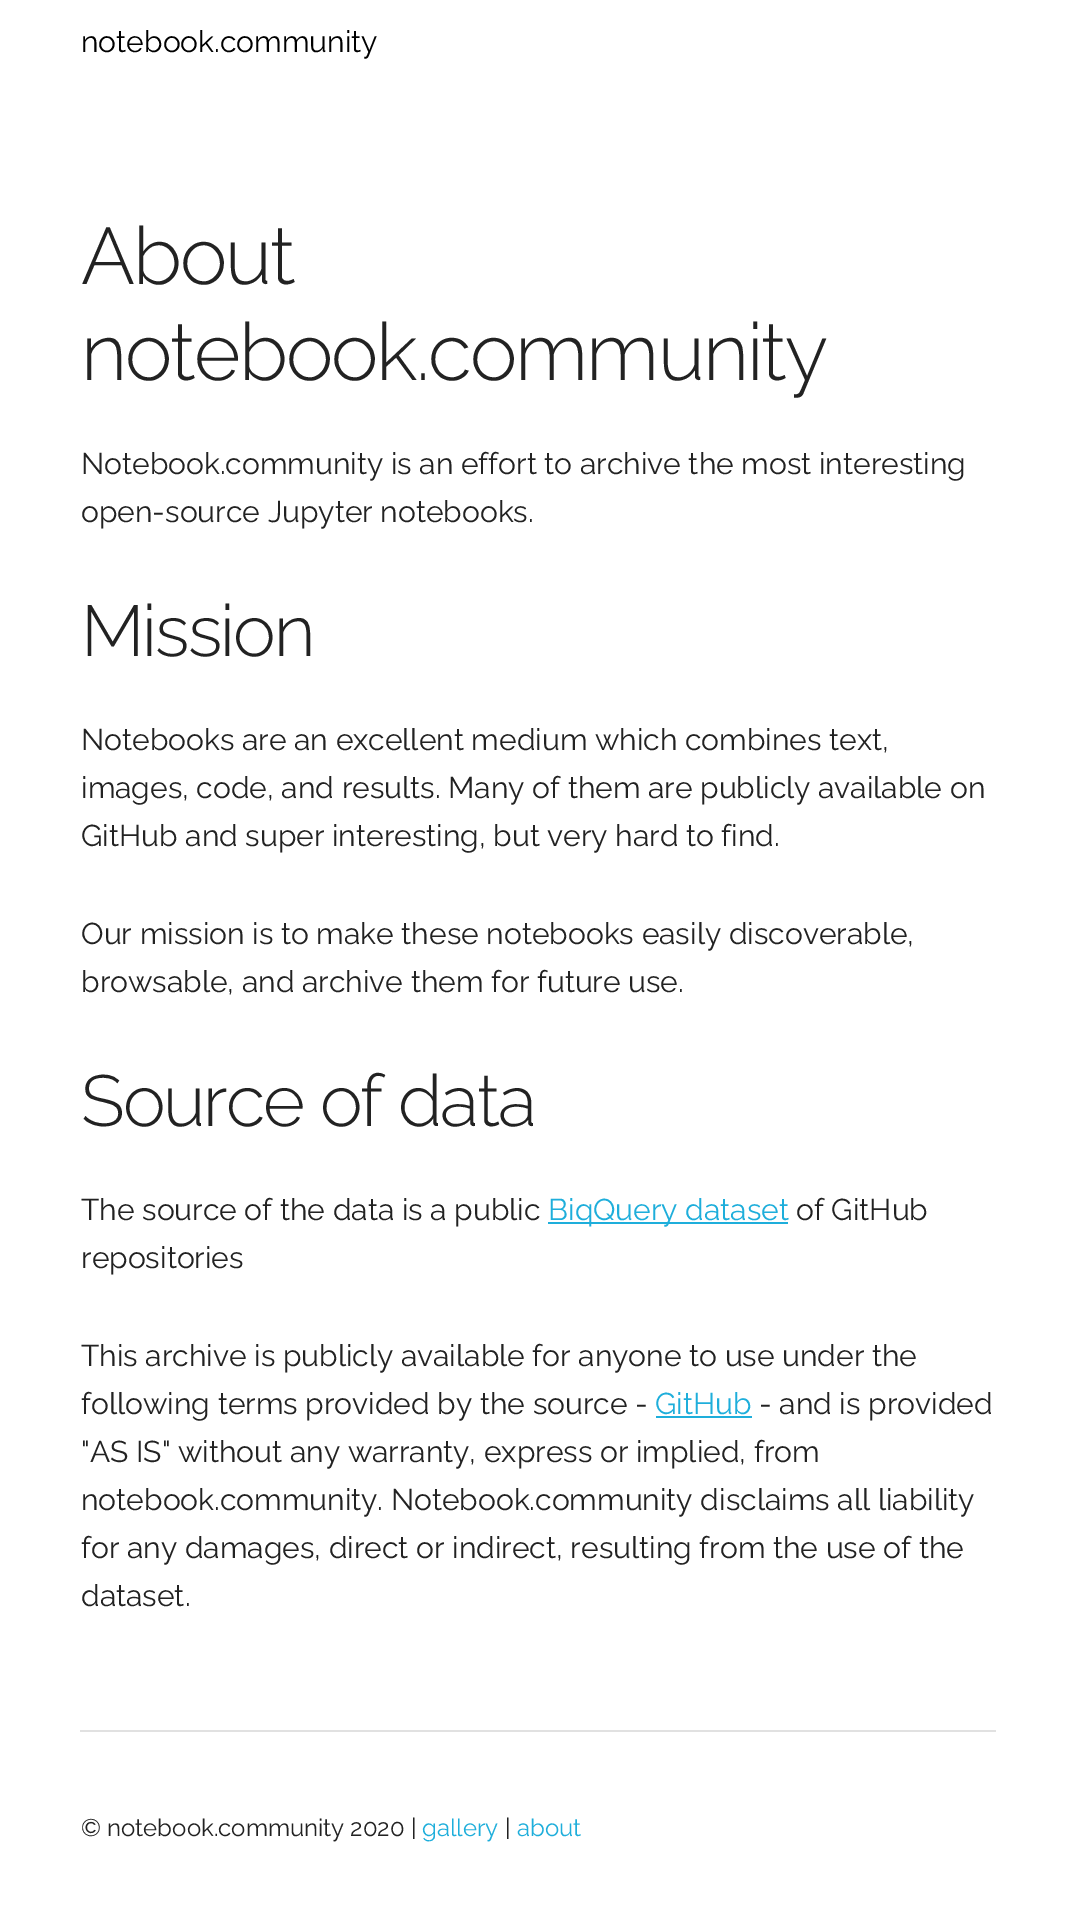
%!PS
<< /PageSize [1075 1924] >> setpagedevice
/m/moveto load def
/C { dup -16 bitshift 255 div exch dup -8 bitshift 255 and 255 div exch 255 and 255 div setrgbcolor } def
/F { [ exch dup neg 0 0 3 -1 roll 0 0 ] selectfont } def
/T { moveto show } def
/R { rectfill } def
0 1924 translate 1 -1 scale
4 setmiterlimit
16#FFFFFF C
0 0 1075 1924 R
/Raleway-Regular 30 F
16#000000 C
(notebook.community) 81 52 T
/Raleway-Light 80 F
16#222222 C
81 284 m -2 0 (About) ashow
81 380 m -2 0 (notebook.community) ashow
/Raleway-Regular 30 F
(Notebook.community is an effort to archive the most interesting) 81 474 T
(open-source Jupyter notebooks.) 81 522 T
/Raleway-Light 72 F
81 656 m -2 0 (Mission) ashow
/Raleway-Regular 30 F
(Notebooks are an excellent medium which combines text,) 81 750 T
(images, code, and results. Many of them are publicly available on) 81 798 T
(GitHub and super interesting, but very hard to find.) 81 846 T
(Our mission is to make these notebooks easily discoverable,) 81 944 T
(browsable, and archive them for future use.) 81 992 T
/Raleway-Light 72 F
81 1126 m -2 0 (Source of data) ashow
/Raleway-Regular 30 F
(The source of the data is a public) 81 1220 T
16#1EAEDB C
548 1222 240 2 R
(BiqQuery dataset) 548 1220 T
16#222222 C
(of GitHub) 796 1220 T
(repositories) 81 1268 T
(This archive is publicly available for anyone to use under the) 81 1366 T
(following terms provided by the source -) 81 1414 T
16#1EAEDB C
(GitHub) 655 1414 T
656 1416 96 2 R
16#222222 C
(- and is provided) 759 1414 T
("AS IS" without any warranty, express or implied, from) 81 1462 T
(notebook.community. Notebook.community disclaims all liability) 81 1510 T
(for any damages, direct or indirect, resulting from the use of the) 81 1558 T
(dataset.) 81 1606 T
16#E1E1E1 C
80 1730 916 2 R
/Raleway-Regular 24 F
16#222222 C
(© notebook.community 2020 |) 81 1836 T
16#1EAEDB C
(gallery) 422 1836 T
16#222222 C
(|) 505 1836 T
16#1EAEDB C
(about) 517 1836 T
showpage
